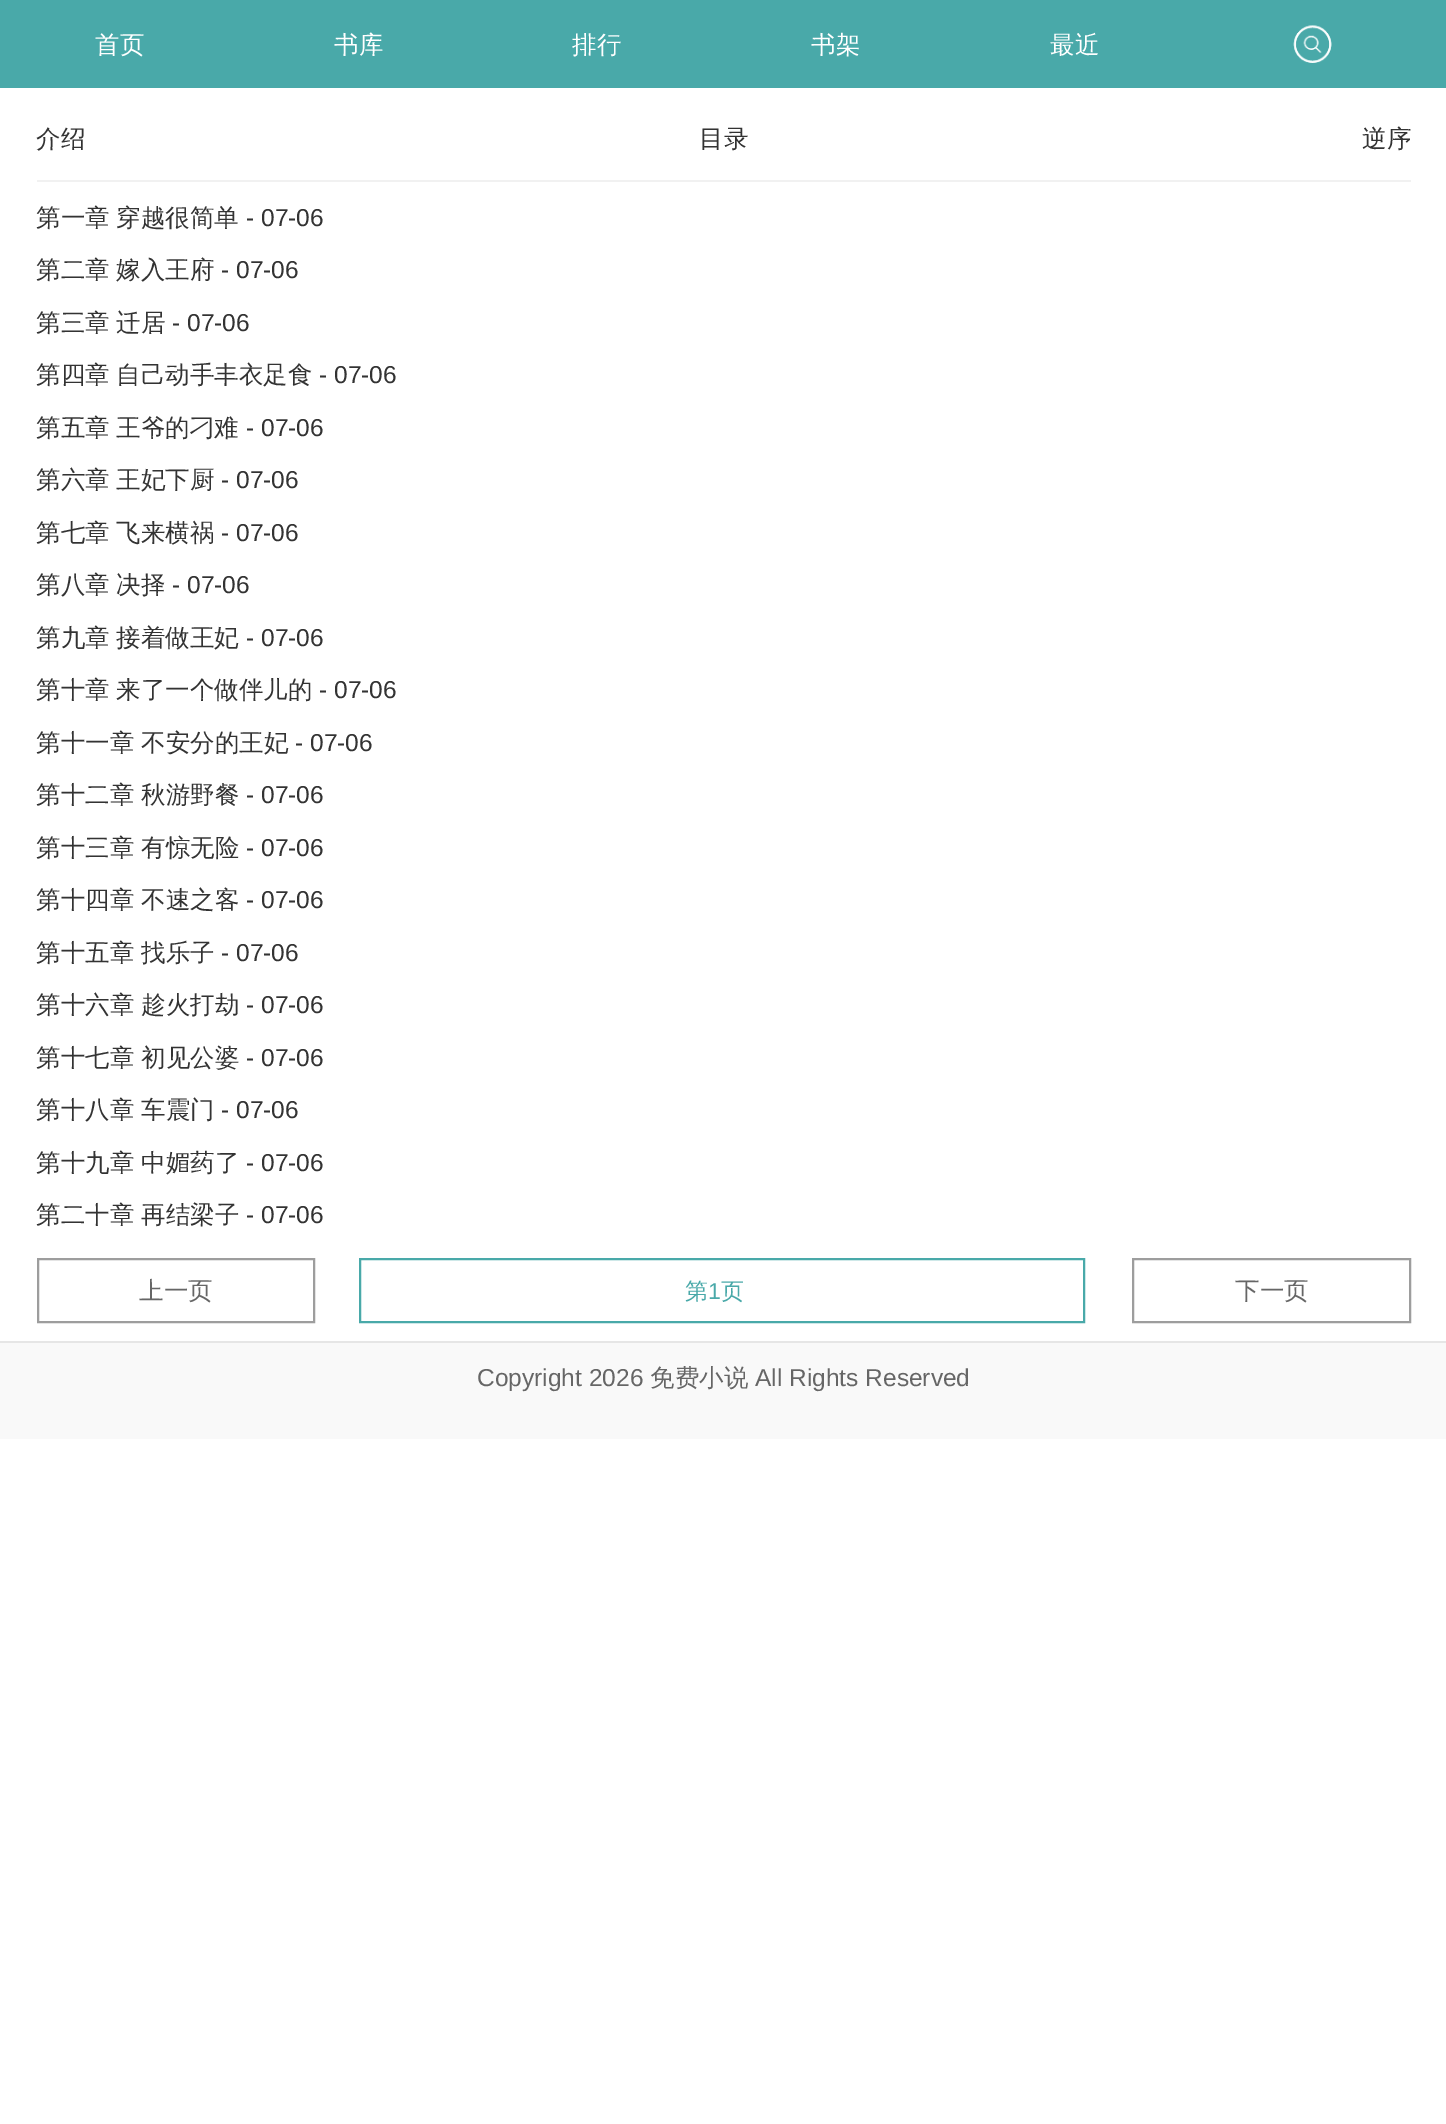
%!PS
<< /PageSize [1446 2124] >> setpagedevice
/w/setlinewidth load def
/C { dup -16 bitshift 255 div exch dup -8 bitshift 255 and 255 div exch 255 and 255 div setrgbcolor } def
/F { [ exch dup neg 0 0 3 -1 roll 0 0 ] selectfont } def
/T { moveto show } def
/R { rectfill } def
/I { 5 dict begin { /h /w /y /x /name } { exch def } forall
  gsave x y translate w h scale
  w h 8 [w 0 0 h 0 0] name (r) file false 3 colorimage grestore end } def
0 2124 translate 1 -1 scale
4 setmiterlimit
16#FFFFFF C
0 0 1446 2124 R
16#49A9A9 C
0 0 1446 88 R
/WenQuanYiZenHei-Medium 24.5 F
16#FFFFFF C
(首页) 95 53 T
(书库) 334 53 T
(排行) 572 53 T
(书架) 811 53 T
(最近) 1050 53 T
(1.rgb) 1293 25 39 38 I
16#F1F1F1 C
37 180 1374 2 R
16#333333 C
(介绍) 36 147 T
(目录) 699 147 T
(逆序) 1362 147 T
(第一章) 36 226 T
(穿越很简单) 116 226 T
/LiberationSans-Regular 24.5 F
(- 07-06) 246 226 T
/WenQuanYiZenHei-Medium 24.5 F
(第二章) 36 278 T
(嫁入王府) 116 278 T
/LiberationSans-Regular 24.5 F
(- 07-06) 221 278 T
/WenQuanYiZenHei-Medium 24.5 F
(第三章) 36 331 T
(迁居) 116 331 T
/LiberationSans-Regular 24.5 F
(- 07-06) 172 331 T
/WenQuanYiZenHei-Medium 24.5 F
(第四章) 36 383 T
(自己动手丰衣足食) 116 383 T
/LiberationSans-Regular 24.5 F
(- 07-06) 319 383 T
/WenQuanYiZenHei-Medium 24.5 F
(第五章) 36 436 T
(王爷的刁难) 116 436 T
/LiberationSans-Regular 24.5 F
(- 07-06) 246 436 T
/WenQuanYiZenHei-Medium 24.5 F
(第六章) 36 488 T
(王妃下厨) 116 488 T
/LiberationSans-Regular 24.5 F
(- 07-06) 221 488 T
/WenQuanYiZenHei-Medium 24.5 F
(第七章) 36 541 T
(飞来横祸) 116 541 T
/LiberationSans-Regular 24.5 F
(- 07-06) 221 541 T
/WenQuanYiZenHei-Medium 24.5 F
(第八章) 36 593 T
(决择) 116 593 T
/LiberationSans-Regular 24.5 F
(- 07-06) 172 593 T
/WenQuanYiZenHei-Medium 24.5 F
(第九章) 36 646 T
(接着做王妃) 116 646 T
/LiberationSans-Regular 24.5 F
(- 07-06) 246 646 T
/WenQuanYiZenHei-Medium 24.5 F
(第十章) 36 698 T
(来了一个做伴儿的) 116 698 T
/LiberationSans-Regular 24.5 F
(- 07-06) 319 698 T
/WenQuanYiZenHei-Medium 24.5 F
(第十一章) 36 751 T
(不安分的王妃) 141 751 T
/LiberationSans-Regular 24.5 F
(- 07-06) 295 751 T
/WenQuanYiZenHei-Medium 24.5 F
(第十二章) 36 803 T
(秋游野餐) 141 803 T
/LiberationSans-Regular 24.5 F
(- 07-06) 246 803 T
/WenQuanYiZenHei-Medium 24.5 F
(第十三章) 36 856 T
(有惊无险) 141 856 T
/LiberationSans-Regular 24.5 F
(- 07-06) 246 856 T
/WenQuanYiZenHei-Medium 24.5 F
(第十四章) 36 908 T
(不速之客) 141 908 T
/LiberationSans-Regular 24.5 F
(- 07-06) 246 908 T
/WenQuanYiZenHei-Medium 24.5 F
(第十五章) 36 961 T
(找乐子) 141 961 T
/LiberationSans-Regular 24.5 F
(- 07-06) 221 961 T
/WenQuanYiZenHei-Medium 24.5 F
(第十六章) 36 1013 T
(趁火打劫) 141 1013 T
/LiberationSans-Regular 24.5 F
(- 07-06) 246 1013 T
/WenQuanYiZenHei-Medium 24.5 F
(第十七章) 36 1066 T
(初见公婆) 141 1066 T
/LiberationSans-Regular 24.5 F
(- 07-06) 246 1066 T
/WenQuanYiZenHei-Medium 24.5 F
(第十八章) 36 1118 T
(车震门) 141 1118 T
/LiberationSans-Regular 24.5 F
(- 07-06) 221 1118 T
/WenQuanYiZenHei-Medium 24.5 F
(第十九章) 36 1171 T
(中媚药了) 141 1171 T
/LiberationSans-Regular 24.5 F
(- 07-06) 246 1171 T
/WenQuanYiZenHei-Medium 24.5 F
(第二十章) 36 1223 T
(再结梁子) 141 1223 T
/LiberationSans-Regular 24.5 F
(- 07-06) 246 1223 T
16#9D9D9D C
2 w
38 1259 276 63 rectstroke
/WenQuanYiZenHei-Medium 24.5 F
16#666666 C
(上一页) 139 1299 T
16#49A9A9 C
360 1259 724 63 rectstroke
/WenQuanYiZenHei-Medium 23 F
(第) 685 1299 T
/LiberationSans-Regular 23 F
(1) 708 1299 T
/WenQuanYiZenHei-Medium 23 F
(页) 721 1299 T
16#9D9D9D C
1133 1259 277 63 rectstroke
/WenQuanYiZenHei-Medium 24.5 F
16#666666 C
(下一页) 1235 1299 T
16#F9F9F9 C
0 1343 1446 96 R
16#E6E6E6 C
0 1341 1446 2 R
/LiberationSans-Regular 24.5 F
16#666666 C
(Copyright 2026) 477 1386 T
/WenQuanYiZenHei-Medium 24.5 F
(免费小说) 650 1386 T
/LiberationSans-Regular 24.5 F
(All Rights Reserved) 755 1386 T
showpage
